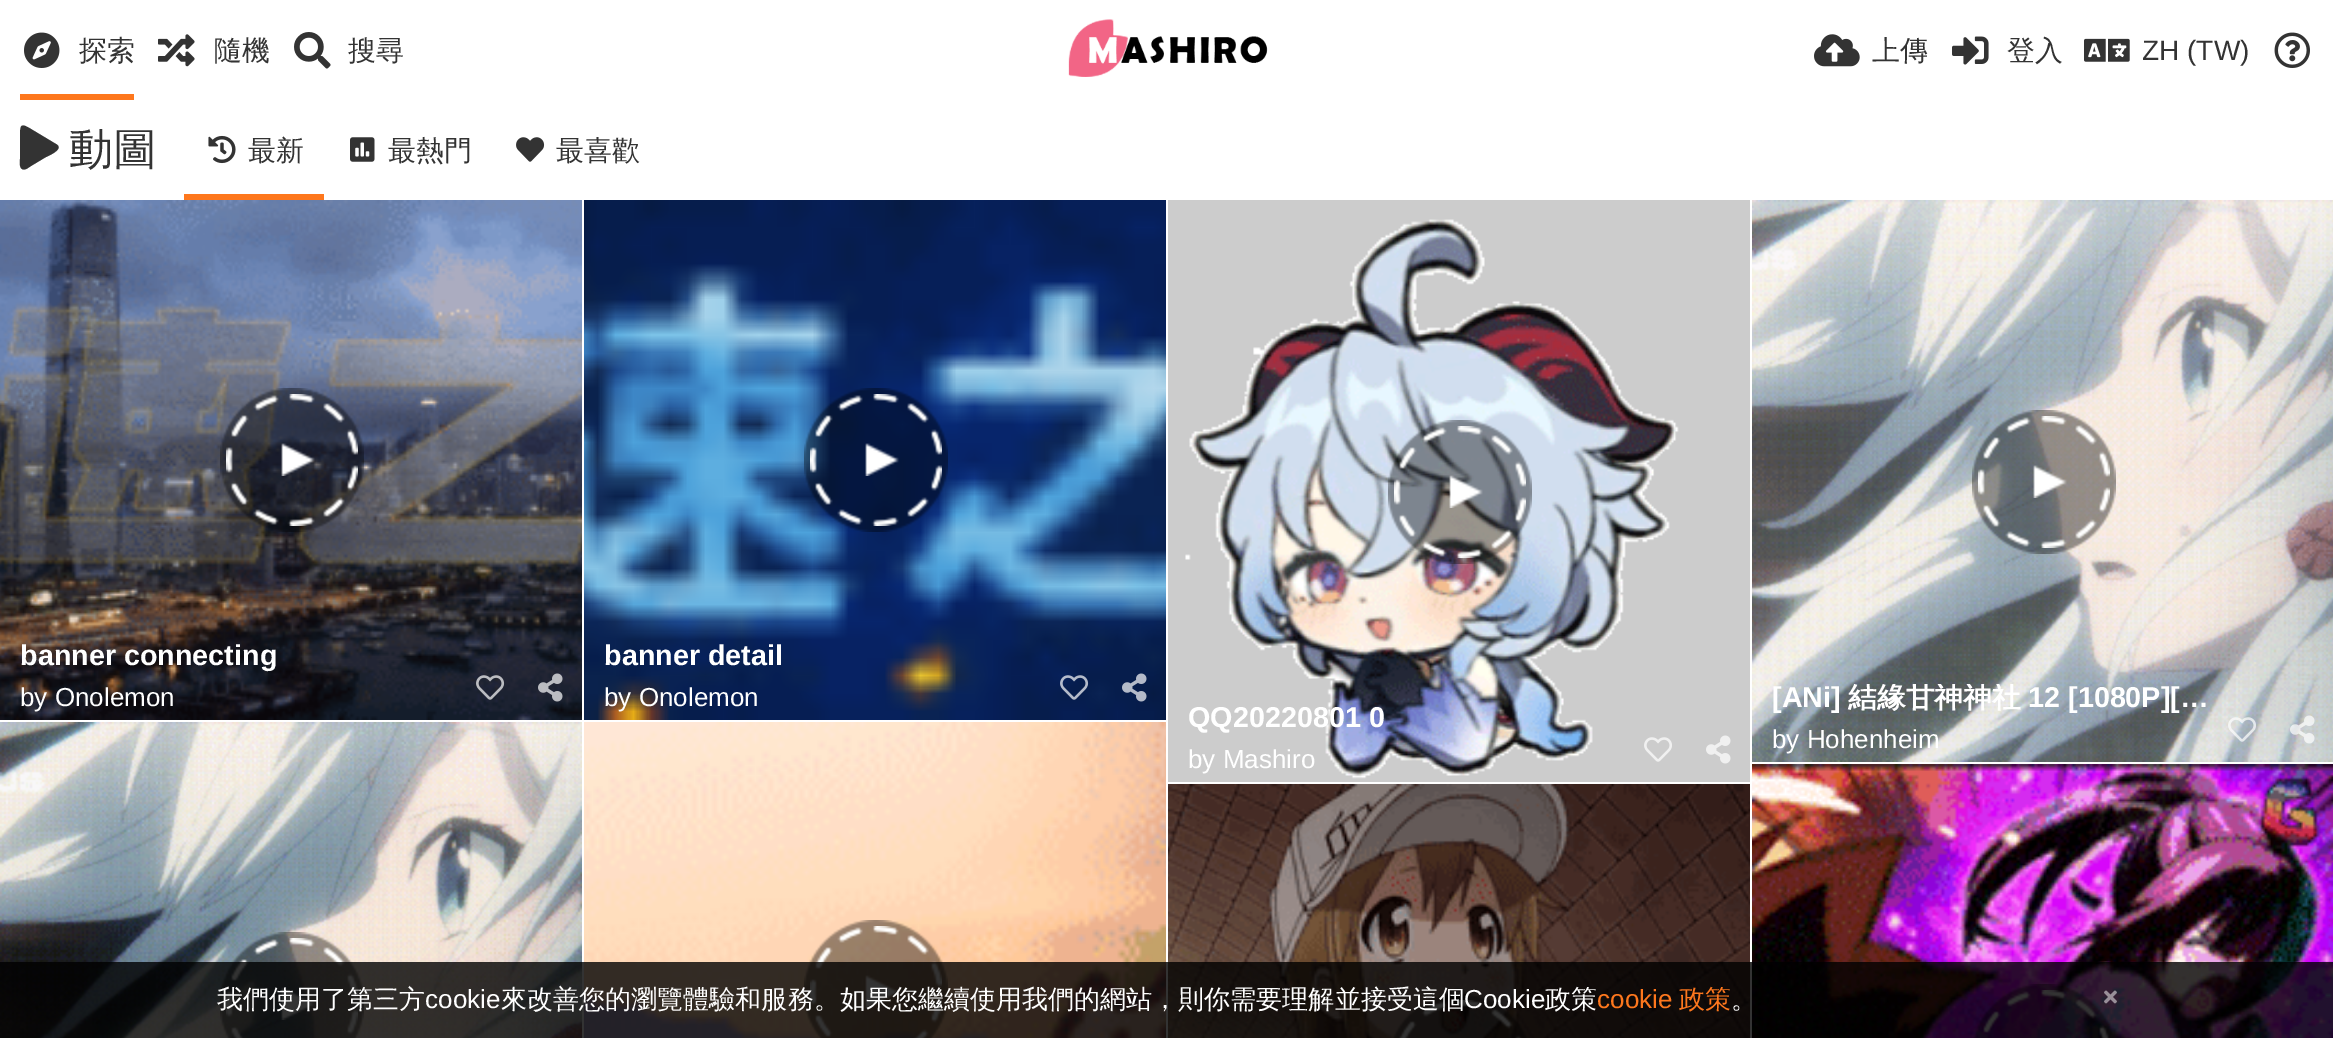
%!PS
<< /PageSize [2333 1038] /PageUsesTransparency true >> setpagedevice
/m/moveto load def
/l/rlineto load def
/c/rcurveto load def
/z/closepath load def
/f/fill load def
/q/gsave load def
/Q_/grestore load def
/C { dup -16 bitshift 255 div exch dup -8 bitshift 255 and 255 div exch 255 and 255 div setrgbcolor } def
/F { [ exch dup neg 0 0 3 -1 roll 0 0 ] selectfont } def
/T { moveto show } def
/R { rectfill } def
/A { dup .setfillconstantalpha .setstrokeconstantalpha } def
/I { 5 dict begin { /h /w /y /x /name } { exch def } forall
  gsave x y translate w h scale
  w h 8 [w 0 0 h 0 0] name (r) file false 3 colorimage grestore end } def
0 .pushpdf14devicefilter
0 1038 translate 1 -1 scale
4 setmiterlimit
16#FFFFFF C
0 0 2333 1038 R
16#FE771D C
20 94 114 6 R
(1.rgb) 24 32 36 36 I
/WenQuanYiZenHei-Medium 28 F
16#333333 C
(探索) 79 60 T
(2.rgb) 158 34 37 33 I
(隨機) 214 60 T
(3.rgb) 294 32 37 37 I
(搜尋) 348 60 T
(4.rgb) 1068 19 200 58 I
(5.rgb) 1814 34 46 33 I
(上傳) 1872 60 T
(6.rgb) 1952 36 37 29 I
(登入) 2007 60 T
(7.rgb) 2084 38 46 24 I
/LiberationSans-Regular 28 F
(ZH \(TW\)) 2142 60 T
(8.rgb) 2274 32 36 36 I
56 144 m 9 5 -8 12 -10 13 c -15 9 l -2 1 -6 5 -9 3 c -3 -2 -2 -7 -2 -10 c 0 -23 l 0 -12 1 -13 11 -7 c z f
/WenQuanYiZenHei-Medium 44 F
(動圖) 69 164 T
16#FE771D C
184 194 140 6 R
(9.rgb) 208 135 28 29 I
/WenQuanYiZenHei-Medium 28 F
16#333333 C
(最新) 248 160 T
(10.rgb) 350 137 25 25 I
(最熱門) 388 160 T
(11.rgb) 516 137 29 25 I
(最喜歡) 556 160 T
(12.rgb) 0 200 582 520 I
(13.rgb) 220 388 144 144 I
(14.rgb) 226 394 132 132 I
(15.rgb) 281 443 34 33 I
/LiberationSans-Bold 28.75 F
16#FFFFFF C
(banner connecting) 20 665 T
/LiberationSans-Regular 26 F
(by Onolemon) 20 706 T
(16.rgb) 476 675 29 25 I
(17.rgb) 538 673 25 29 I
(18.rgb) 584 200 582 520 I
(19.rgb) 804 388 144 144 I
(20.rgb) 810 394 132 132 I
(21.rgb) 865 443 34 33 I
/LiberationSans-Bold 28.75 F
(banner detail) 604 665 T
/LiberationSans-Regular 26 F
(by Onolemon) 604 706 T
(22.rgb) 1060 675 29 25 I
(23.rgb) 1122 673 25 29 I
16#CCCCCC C
1168 200 582 582 R
(24.rgb) 1185 219 494 560 I
(25.rgb) 1388 420 144 144 I
(26.rgb) 1394 426 132 132 I
(27.rgb) 1449 475 34 33 I
/LiberationSans-Bold 28.75 F
16#FFFFFF C
(QQ20220801 0) 1188 727 T
/LiberationSans-Regular 26 F
(by Mashiro) 1188 768 T
(28.rgb) 1644 737 28 25 I
(29.rgb) 1706 735 25 29 I
(30.rgb) 1752 200 581 562 I
(31.rgb) 1972 410 144 144 I
(32.rgb) 1978 416 132 132 I
(33.rgb) 2033 465 34 33 I
/LiberationSans-Bold 28.75 F
([ANi]) 1772 707 T
q
1772 684 442 38 rectclip
/WenQuanYiZenHei-Bold 28.75 F
(結緣甘神神社) 1848 707 T
Q_
(12 [1080P][…) 2028 707 T
/LiberationSans-Regular 26 F
(by Hohenheim) 1772 748 T
(34.rgb) 2228 717 28 25 I
(35.rgb) 2290 715 25 29 I
(36.rgb) 0 722 582 316 I
(37.rgb) 220 932 144 106 I
(38.rgb) 226 938 132 100 I
(39.rgb) 281 987 34 33 I
(40.rgb) 584 722 582 316 I
(41.rgb) 804 920 144 118 I
(42.rgb) 810 926 132 112 I
(43.rgb) 865 975 34 33 I
(44.rgb) 1168 784 582 254 I
(45.rgb) 1392 994 135 44 I
(46.rgb) 1399 1000 124 38 I
(47.rgb) 1752 764 581 274 I
(48.rgb) 1973 984 142 54 I
(49.rgb) 1983 990 127 48 I
0.8 A
16#000000 C
0 962 2333 76 R
/WenQuanYiZenHei-Medium 26.05 F
1 A
16#FFFFFF C
(我們使用了第三方) 217 1008 T
/LiberationSans-Regular 26.05 F
(cookie) 425 1008 T
/WenQuanYiZenHei-Medium 26.05 F
(來改善您的瀏覽體驗和服務。如果您繼續使用我們的網站，則你需要理解並接受這個) 501 1008 T
/LiberationSans-Regular 26.05 F
(Cookie) 1464 1008 T
/WenQuanYiZenHei-Medium 26.05 F
(政策) 1545 1008 T
/LiberationSans-Regular 26.05 F
16#FE771D C
(cookie) 1597 1008 T
/WenQuanYiZenHei-Medium 26.05 F
(政策) 1679 1008 T
16#FFFFFF C
(。) 1731 1008 T
(50.rgb) 2104 990 13 14 I
.poppdf14devicefilter showpage
